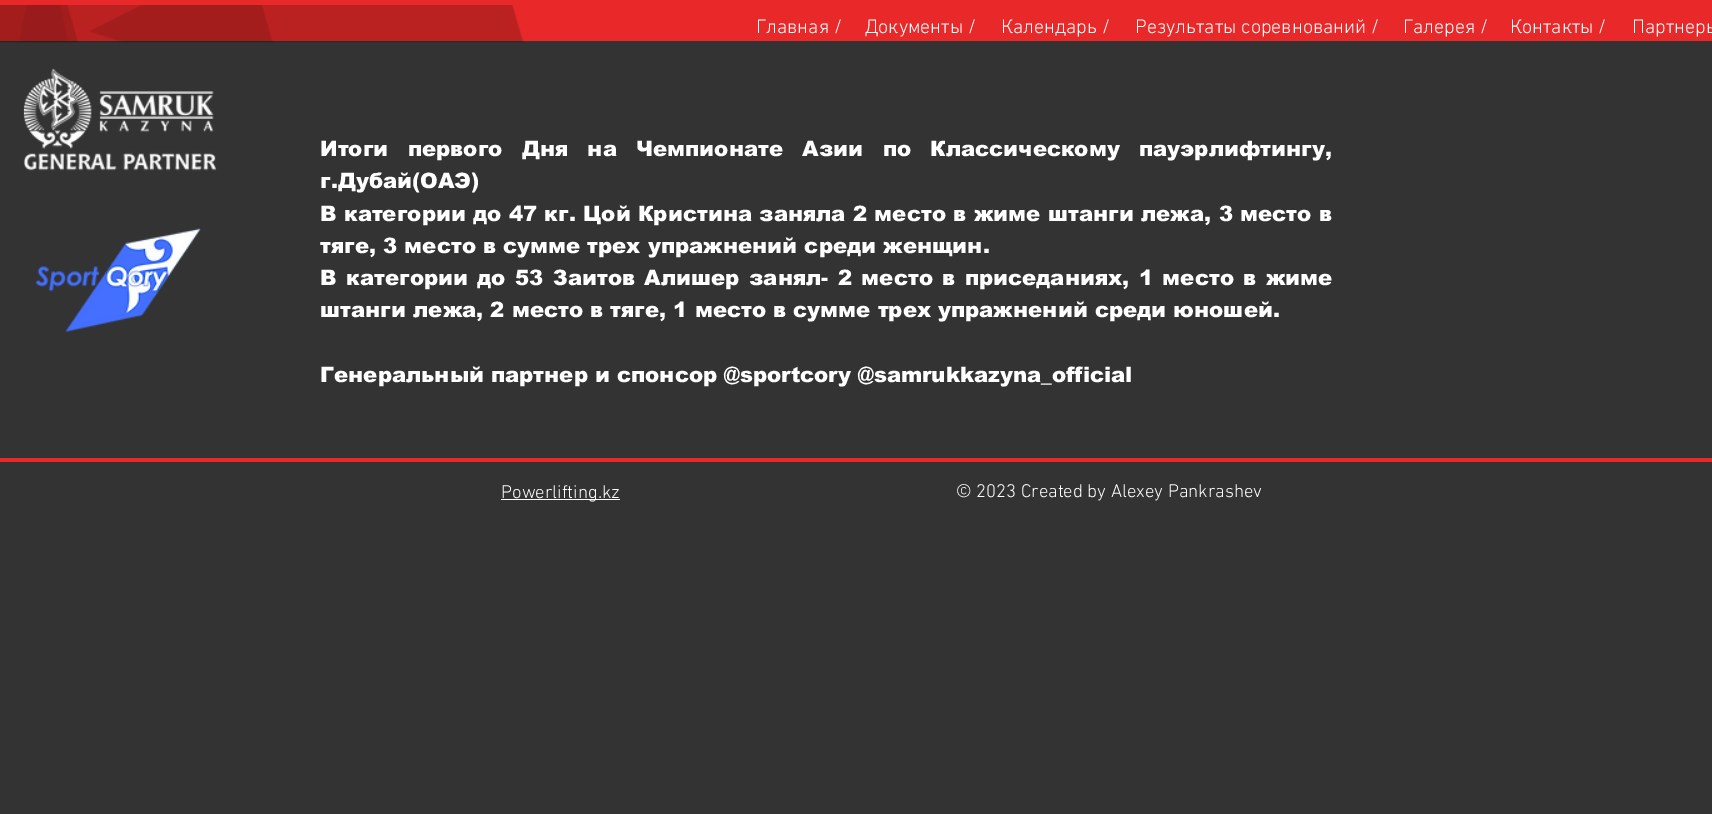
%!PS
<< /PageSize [1712 814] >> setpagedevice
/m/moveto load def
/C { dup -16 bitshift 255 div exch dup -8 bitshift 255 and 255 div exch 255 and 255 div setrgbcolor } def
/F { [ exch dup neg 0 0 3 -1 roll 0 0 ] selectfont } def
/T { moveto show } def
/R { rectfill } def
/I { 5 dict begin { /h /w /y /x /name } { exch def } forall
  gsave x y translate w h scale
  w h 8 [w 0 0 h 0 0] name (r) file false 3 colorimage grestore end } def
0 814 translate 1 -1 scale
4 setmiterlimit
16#333333 C
0 0 1712 814 R
16#E92929 C
0 0 1712 41 R
(1.rgb) 0 5 524 38 I
/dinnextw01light-Light 20 F
16#FFFFFF C
(Главная /) 756 33 T
(Документы /) 865 33 T
(Календарь /) 1001 33 T
(Результаты соревнований /) 1135 33 T
(Галерея /) 1403 33 T
(Контакты /) 1510 33 T
(Партнеры) 1632 33 T
(2.rgb) 23 68 194 103 I
(3.rgb) 35 228 167 105 I
/arial-Black 21.25 F
320 156 m 12.25 0 32 (Итоги первого Дня на Чемпионате Азии по Классическому пауэрлифтингу,) widthshow
(г.Дубай\(ОАЭ\)) 320 188 T
320 221 m .25 0 32 (В категории до 47 кг. Цой Кристина заняла 2 место в жиме штанги лежа, 3 место в) widthshow
(тяге, 3 место в сумме трех упражнений среди женщин.) 320 253 T
320 285 m 2.4 0 32 (В категории до 53 Заитов Алишер занял- 2 место в приседаниях, 1 место в жиме) widthshow
(штанги лежа, 2 место в тяге, 1 место в сумме трех упражнений среди юношей.) 320 317 T
(Генеральный партнер и спонсор @sportcory @samrukkazyna_official) 320 382 T
16#E92929 C
0 458 1712 4 R
16#FFFFFF C
501 499 119 1 R
/dinnextw01light-Light 18.75 F
(Powerlifting.kz) 501 498 T
(© 2023 Created by Alexey Pankrashev) 956 497 T
showpage
